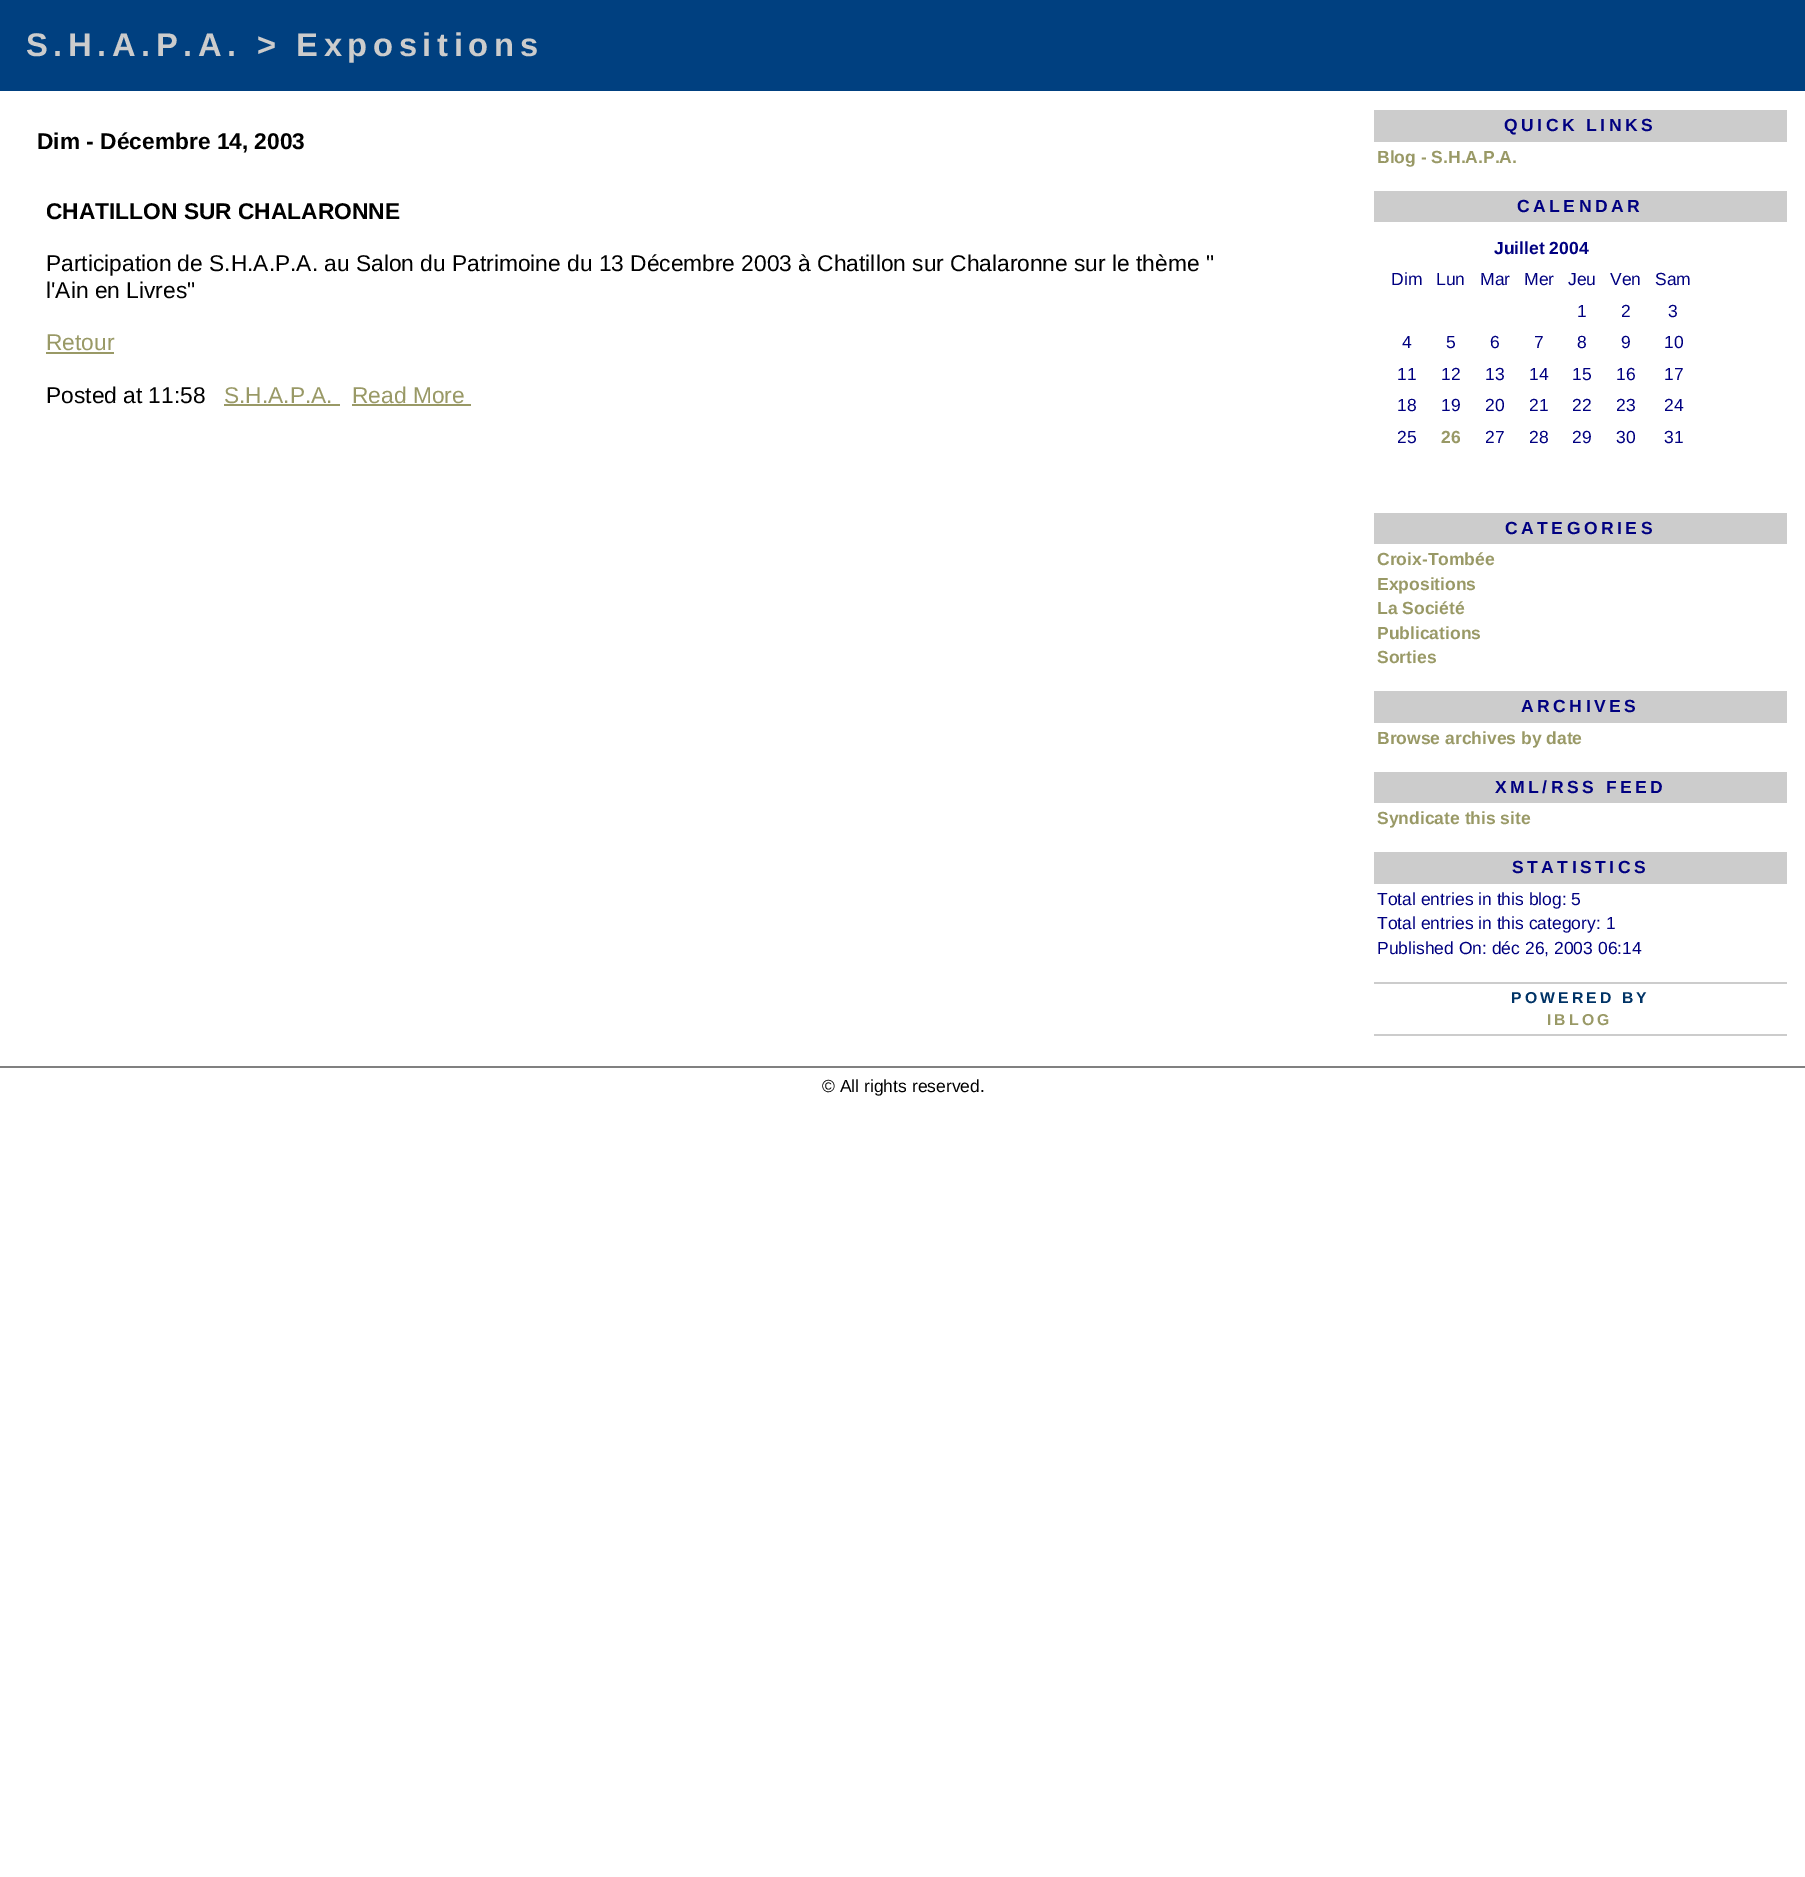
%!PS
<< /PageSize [1805 1877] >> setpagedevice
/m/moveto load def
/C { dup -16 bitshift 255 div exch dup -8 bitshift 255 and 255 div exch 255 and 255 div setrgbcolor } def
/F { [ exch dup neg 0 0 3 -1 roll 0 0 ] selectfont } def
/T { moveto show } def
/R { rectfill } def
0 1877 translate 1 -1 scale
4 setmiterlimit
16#FFFFFF C
0 0 1805 1877 R
16#004080 C
0 0 1805 91 R
/LiberationSans-Bold 32.75 F
16#CCCCCC C
26 56 m 5.6 0 (S.H.A.P.A. > Expositions) ashow
/LiberationSans-Bold 22.75 F
16#000000 C
(Dim - Décembre 14, 2003) 37 149 T
(CHATILLON SUR CHALARONNE) 46 219 T
/LiberationSans-Regular 22.75 F
(Participation de S.H.A.P.A. au Salon du Patrimoine du 13 Décembre 2003 à Chatillon sur Chalaronne sur le thème ") 46 271 T
(l'Ain en Livres") 46 298 T
16#999966 C
(Retour) 46 350 T
46 352 68 2 R
16#000000 C
(Posted at 11:58) 46 403 T
16#999966 C
(S.H.A.P.A.) 224 403 T
224 404 116 2 R
(Read More) 352 403 T
352 404 119 2 R
16#CCCCCC C
1374 110 413 32 R
/LiberationSans-Bold 17.5 F
16#000080 C
1504 131 m 3.5 0 (QUICK LINKS) ashow
16#999966 C
(Blog - S.H.A.P.A.) 1377 163 T
16#CCCCCC C
1374 191 413 31 R
16#000080 C
1517 212 m 3.5 0 (CALENDAR) ashow
(Juillet 2004) 1494 254 T
/LiberationSans-Regular 17.5 F
(Dim) 1391 285 T
(Lun) 1436 285 T
(Mar) 1480 285 T
(Mer) 1524 285 T
(Jeu) 1568 285 T
(Ven) 1610 285 T
(Sam) 1655 285 T
(1) 1577 317 T
(2) 1621 317 T
(3) 1668 317 T
(4) 1402 348 T
(5) 1446 348 T
(6) 1490 348 T
(7) 1534 348 T
(8) 1577 348 T
(9) 1621 348 T
(10) 1664 348 T
(11) 1397 380 T
(12) 1441 380 T
(13) 1485 380 T
(14) 1529 380 T
(15) 1572 380 T
(16) 1616 380 T
(17) 1664 380 T
(18) 1397 411 T
(19) 1441 411 T
(20) 1485 411 T
(21) 1529 411 T
(22) 1572 411 T
(23) 1616 411 T
(24) 1664 411 T
(25) 1397 443 T
/LiberationSans-Bold 17.5 F
16#999966 C
(26) 1441 443 T
/LiberationSans-Regular 17.5 F
16#000080 C
(27) 1485 443 T
(28) 1529 443 T
(29) 1572 443 T
(30) 1616 443 T
(31) 1664 443 T
16#CCCCCC C
1374 513 413 31 R
/LiberationSans-Bold 17.5 F
16#000080 C
1505 534 m 3.5 0 (CATEGORIES) ashow
16#999966 C
(Croix-Tombée) 1377 565 T
(Expositions) 1377 590 T
(La Société) 1377 614 T
(Publications) 1377 639 T
(Sorties) 1377 663 T
16#CCCCCC C
1374 691 413 32 R
16#000080 C
1521 712 m 3.5 0 (ARCHIVES) ashow
16#999966 C
(Browse archives by date) 1377 744 T
16#CCCCCC C
1374 772 413 31 R
16#000080 C
1495 793 m 3.5 0 (XML/RSS FEED) ashow
16#999966 C
(Syndicate this site) 1377 824 T
16#CCCCCC C
1374 852 413 32 R
16#000080 C
1512 873 m 3.5 0 (STATISTICS) ashow
/LiberationSans-Regular 17.5 F
(Total entries in this blog: 5) 1377 905 T
(Total entries in this category: 1) 1377 929 T
(Published On: déc 26, 2003 06:14) 1377 954 T
16#CCCCCC C
1374 982 413 2 R
1374 1034 413 2 R
/LiberationSans-Bold 15.75 F
16#003366 C
1511 1003 m 3.1 0 (POWERED BY) ashow
16#999966 C
1547 1025 m 3.1 0 (IBLOG) ashow
16#808080 C
0 1066 1805 2 R
/LiberationSans-Regular 17.5 F
16#000000 C
(© All rights reserved.) 822 1092 T
showpage
